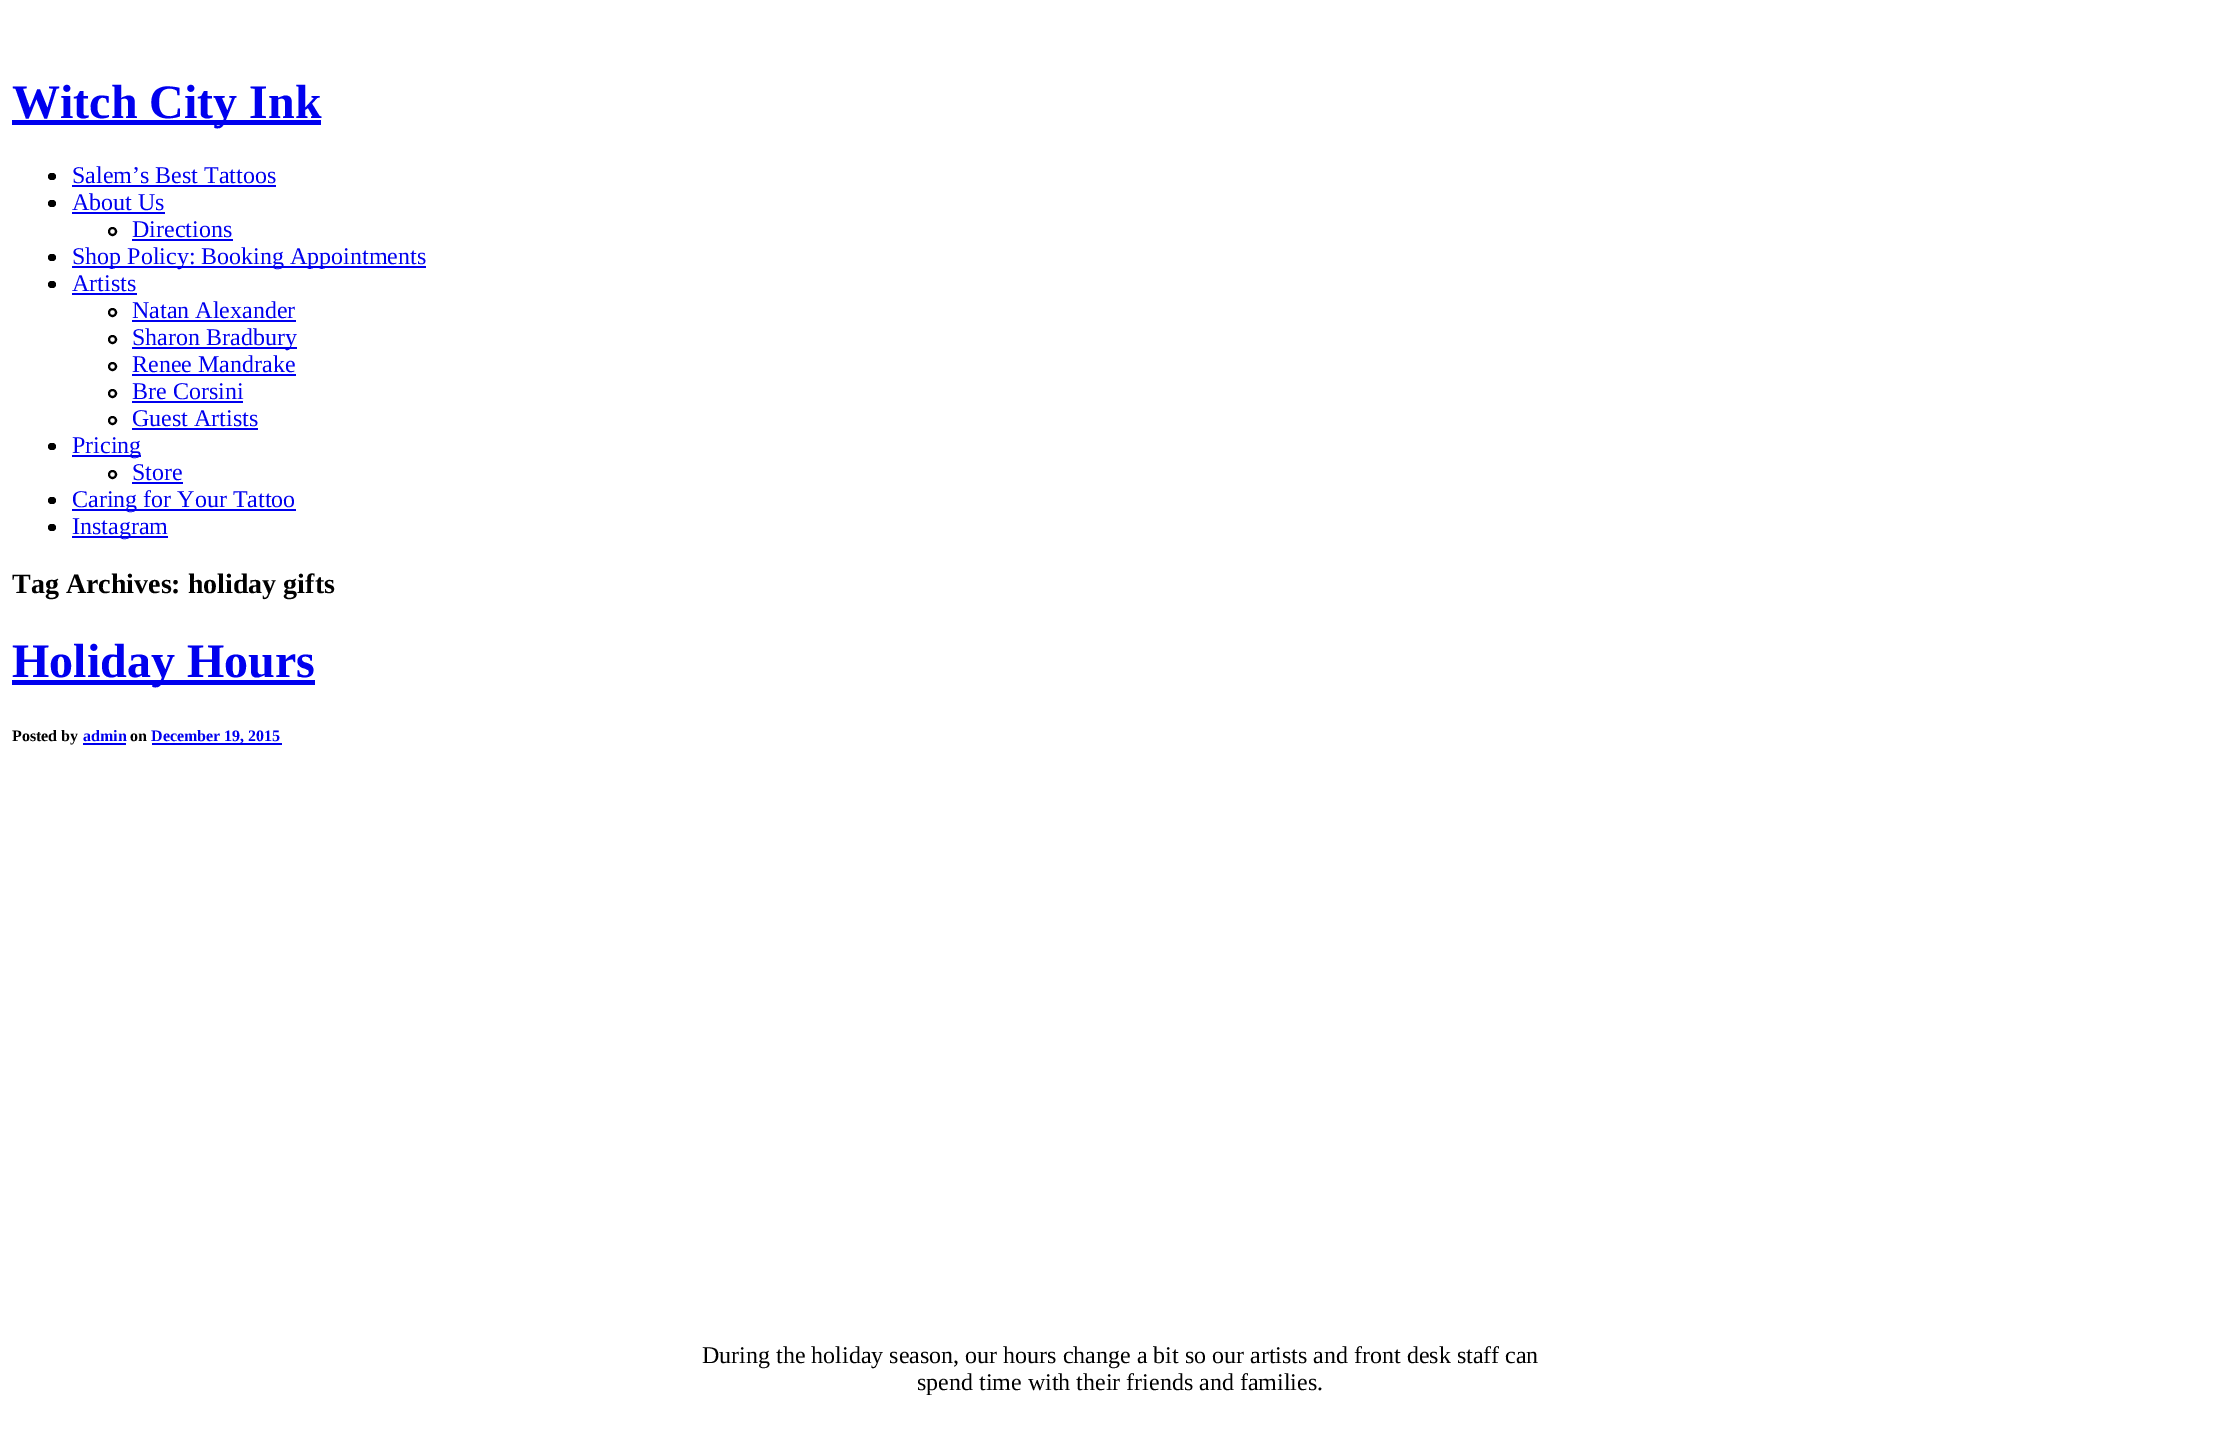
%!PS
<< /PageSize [2239 1432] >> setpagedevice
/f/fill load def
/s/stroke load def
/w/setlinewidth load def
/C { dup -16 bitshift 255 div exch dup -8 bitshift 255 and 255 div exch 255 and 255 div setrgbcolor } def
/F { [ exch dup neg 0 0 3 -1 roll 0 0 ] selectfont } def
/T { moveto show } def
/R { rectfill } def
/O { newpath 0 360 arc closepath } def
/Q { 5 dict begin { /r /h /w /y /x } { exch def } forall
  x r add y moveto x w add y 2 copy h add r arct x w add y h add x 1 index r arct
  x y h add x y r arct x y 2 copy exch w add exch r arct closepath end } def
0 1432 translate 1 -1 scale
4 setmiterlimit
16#FFFFFF C
0 0 2239 1432 R
16#0000EE C
12 120 309 5 R
/LiberationSerif-Bold 48 F
(Witch City Ink) 12 118 T
16#000000 C
48 173 8 7 3.5 Q f
/LiberationSerif-Regular 24 F
16#0000EE C
(Salem’s Best Tattoos) 72 183 T
72 185 204 2 R
16#000000 C
48 200 8 7 3.5 Q f
16#0000EE C
(About Us) 72 210 T
72 212 93 2 R
16#000000 C
2 w
112.5 231.5 3.5 O s
16#0000EE C
(Directions) 132 237 T
132 239 101 2 R
16#000000 C
48 254 8 7 3.5 Q f
16#0000EE C
72 266 354 2 R
(Shop Policy: Booking Appointments) 72 264 T
16#000000 C
48 281 8 7 3.5 Q f
16#0000EE C
(Artists) 72 291 T
72 293 65 2 R
16#000000 C
112.5 312.5 3.5 O s
16#0000EE C
(Natan Alexander) 132 318 T
132 320 164 2 R
16#000000 C
112.5 339.5 3.5 O s
16#0000EE C
132 347 165 2 R
(Sharon Bradbury) 132 345 T
16#000000 C
112.5 366.5 3.5 O s
16#0000EE C
(Renee Mandrake) 132 372 T
132 374 164 2 R
16#000000 C
112.5 393.5 3.5 O s
16#0000EE C
(Bre Corsini) 132 399 T
132 401 111 2 R
16#000000 C
112.5 420.5 3.5 O s
16#0000EE C
(Guest Artists) 132 426 T
132 428 126 2 R
16#000000 C
48 443 8 7 3.5 Q f
16#0000EE C
72 455 69 2 R
(Pricing) 72 453 T
16#000000 C
112.5 474.5 3.5 O s
16#0000EE C
(Store) 132 480 T
132 482 51 2 R
16#000000 C
48 497 8 7 3.5 Q f
16#0000EE C
72 509 224 2 R
(Caring for Your Tattoo) 72 507 T
16#000000 C
48 524 8 7 3.5 Q f
16#0000EE C
72 536 96 2 R
(Instagram) 72 534 T
/LiberationSerif-Bold 28 F
16#000000 C
(Tag Archives: holiday gifts) 12 593 T
16#0000EE C
12 680 303 5 R
/LiberationSerif-Bold 48 F
(Holiday Hours) 12 677 T
/LiberationSerif-Bold 16 F
16#000000 C
(Posted by) 12 741 T
16#0000EE C
(admin) 83 741 T
83 743 43 2 R
16#000000 C
(on) 130 741 T
16#0000EE C
152 743 130 2 R
(December 19, 2015) 151 741 T
/LiberationSerif-Regular 24 F
16#000000 C
(During the holiday season, our hours change a bit so our artists and front desk staff can) 702 1363 T
(spend time with their friends and families.) 917 1390 T
showpage
